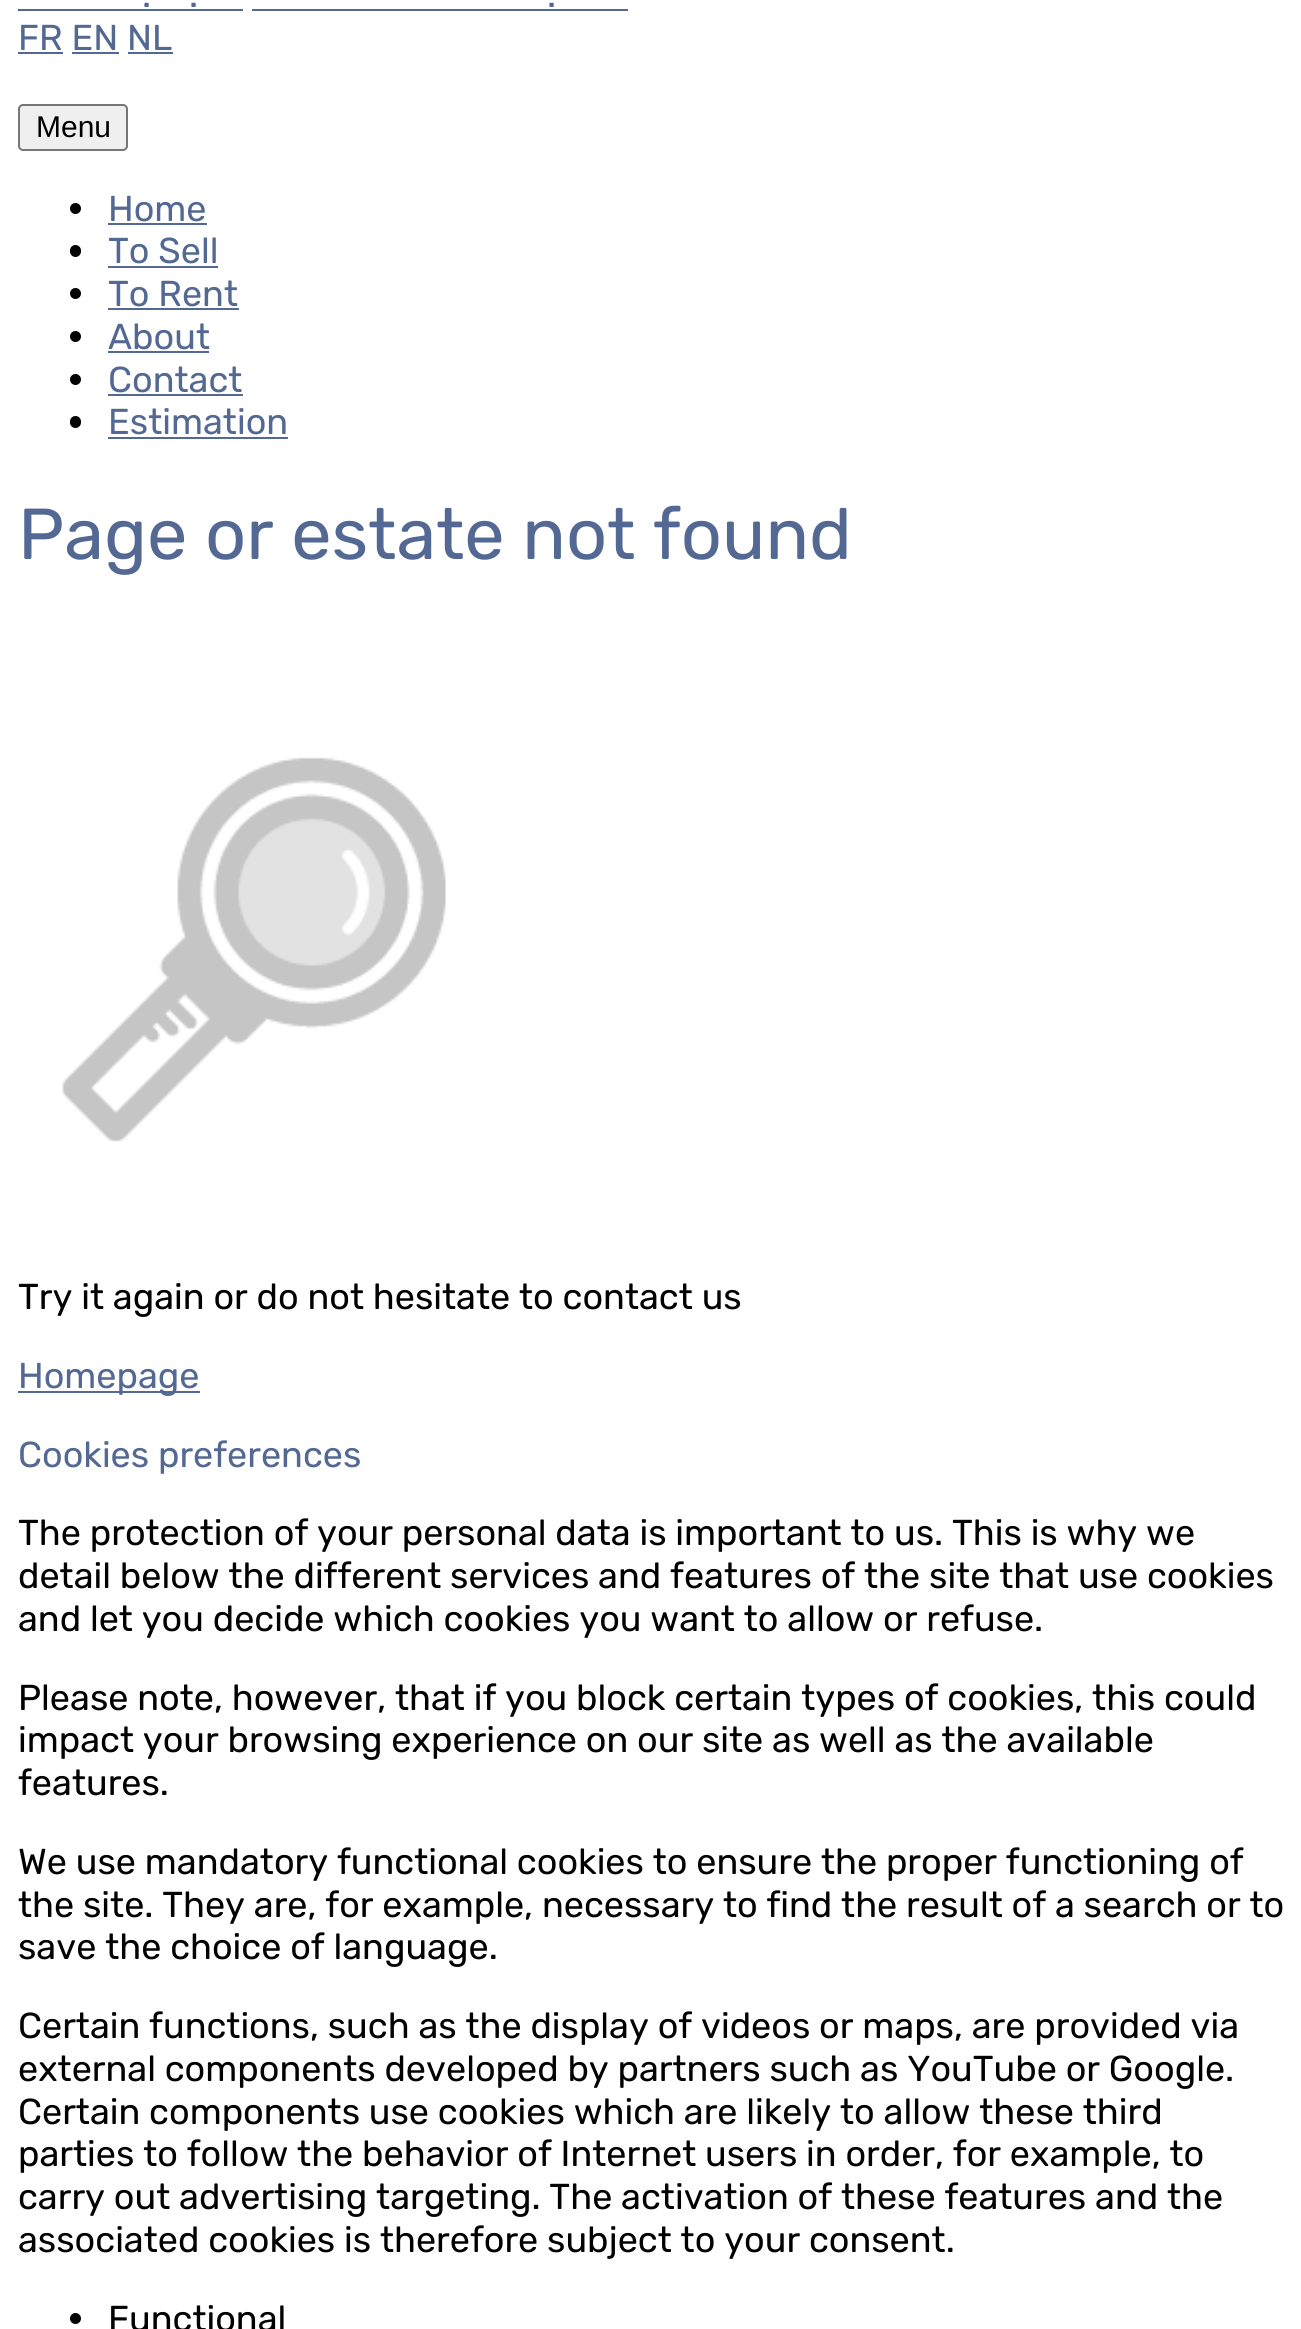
import math
import cairo


def round_path(ctx, x, y, w, h, r):
	ctx.new_sub_path()
	for i, (u, v) in enumerate([(x + w - r, y + h - r), (x + r, y + h - r), (x + r, y + r), (x + w - r, y + r)]):
		ctx.arc(u, v, r, i * math.pi / 2, (i + 1) * math.pi / 2)
	ctx.close_path()

def paste(ctx, path, x, y, w, h):
	ctx.save()
	ctx.set_source_surface(cairo.ImageSurface.create_from_png(path), x, y)
	ctx.rectangle(x, y, w, h)
	ctx.fill()
	ctx.restore()

def draw(ctx):
	ctx.set_source_rgb(1, 1, 1)
	ctx.paint()
	ctx.select_font_face('Rubik')
	ctx.set_font_size(36)
	ctx.set_source_rgb(0.325, 0.408, 0.576)
	ctx.move_to(142, 7)
	ctx.show_text('.')
	ctx.rectangle(18, 9, 225, 2)
	ctx.fill()
	ctx.move_to(189, 7)
	ctx.show_text('.')
	ctx.move_to(547, 7)
	ctx.show_text('.')
	ctx.rectangle(252, 9, 376, 2)
	ctx.fill()
	ctx.move_to(18, 50)
	ctx.show_text('FR EN NL')
	ctx.rectangle(18, 52, 45, 2)
	ctx.rectangle(72, 52, 47, 2)
	ctx.rectangle(128, 52, 45, 2)
	ctx.fill()
	ctx.set_source_rgb(0.937, 0.937, 0.937)
	round_path(ctx, 19, 105, 108, 45, 4)
	ctx.fill_preserve()
	ctx.set_source_rgb(0.463, 0.463, 0.463)
	ctx.stroke()
	ctx.select_font_face('Liberation Sans')
	ctx.set_font_size(30)
	ctx.set_source_rgb(0, 0, 0)
	ctx.move_to(36, 137)
	ctx.show_text('Menu')
	ctx.new_path()
	ctx.arc(75.5, 208.5, 5.5, 0, 2 * math.pi)
	ctx.fill()
	ctx.select_font_face('Rubik')
	ctx.set_font_size(36)
	ctx.set_source_rgb(0.325, 0.408, 0.576)
	ctx.move_to(108, 221)
	ctx.show_text('Home')
	ctx.rectangle(108, 223, 99, 2)
	ctx.fill()
	ctx.set_source_rgb(0, 0, 0)
	round_path(ctx, 70, 245, 11, 12, 5.5)
	ctx.fill()
	ctx.set_source_rgb(0.325, 0.408, 0.576)
	ctx.move_to(108, 263)
	ctx.show_text('To Sell')
	ctx.rectangle(108, 266, 110, 2)
	ctx.fill()
	ctx.set_source_rgb(0, 0, 0)
	ctx.arc(75.5, 293.5, 5.5, 0, 2 * math.pi)
	ctx.fill()
	ctx.set_source_rgb(0.325, 0.408, 0.576)
	ctx.move_to(108, 306)
	ctx.show_text('To Rent')
	ctx.rectangle(108, 308, 131, 2)
	ctx.fill()
	ctx.set_source_rgb(0, 0, 0)
	ctx.arc(75.5, 336.5, 5.5, 0, 2 * math.pi)
	ctx.fill()
	ctx.set_source_rgb(0.325, 0.408, 0.576)
	ctx.move_to(108, 349)
	ctx.show_text('About')
	ctx.rectangle(108, 351, 101, 2)
	ctx.fill()
	ctx.set_source_rgb(0, 0, 0)
	ctx.arc(75.5, 379.5, 5.5, 0, 2 * math.pi)
	ctx.fill()
	ctx.set_source_rgb(0.325, 0.408, 0.576)
	ctx.move_to(108, 392)
	ctx.show_text('Contact')
	ctx.rectangle(108, 394, 135, 2)
	ctx.fill()
	ctx.set_source_rgb(0, 0, 0)
	round_path(ctx, 70, 416, 11, 12, 5.5)
	ctx.fill()
	ctx.set_source_rgb(0.325, 0.408, 0.576)
	ctx.move_to(108, 434)
	ctx.show_text('Estimation')
	ctx.rectangle(108, 437, 180, 2)
	ctx.fill()
	ctx.set_font_size(72)
	ctx.move_to(18, 559)
	ctx.show_text('Page or estate not found')
	paste(ctx, 'media/1.png', 62, 757, 384, 385)
	ctx.set_font_size(36)
	ctx.set_source_rgb(0, 0, 0)
	ctx.move_to(18, 1309)
	ctx.show_text('Try it again or do not hesitate to contact us')
	ctx.set_source_rgb(0.325, 0.408, 0.576)
	ctx.rectangle(18, 1391, 182, 2)
	ctx.fill()
	ctx.move_to(18, 1388)
	ctx.show_text('Homepage')
	ctx.move_to(18, 1467)
	ctx.show_text('Cookies preferences')
	ctx.set_source_rgb(0, 0, 0)
	for x, y, s in [
		(18, 1545, 'The protection of your personal data is important to us. This is why we'),
		(18, 1588, 'detail below the different services and features of the site that use cookies'),
		(18, 1631, 'and let you decide which cookies you want to allow or refuse.'),
		(18, 1710, 'Please note, however, that if you block certain types of cookies, this could'),
		(18, 1752, 'impact your browsing experience on our site as well as the available'),
		(18, 1795, 'features.'),
		(18, 1874, 'We use mandatory functional cookies to ensure the proper functioning of'),
		(18, 1917, 'the site. They are, for example, necessary to find the result of a search or to'),
		(18, 1959, 'save the choice of language.'),
		(18, 2038, 'Certain functions, such as the display of videos or maps, are provided via'),
		(18, 2081, 'external components developed by partners such as YouTube or Google.'),
		(18, 2124, 'Certain components use cookies which are likely to allow these third'),
		(18, 2166, 'parties to follow the behavior of Internet users in order, for example, to'),
		(18, 2209, 'carry out advertising targeting. The activation of these features and the'),
		(18, 2252, 'associated cookies is therefore subject to your consent.'),
	]:
		ctx.move_to(x, y)
		ctx.show_text(s)
	ctx.new_path()
	ctx.arc(75.5, 2318.5, 5.5, 0, 2 * math.pi)
	ctx.fill()
	ctx.move_to(108, 2331)
	ctx.show_text('Functional')


surface = cairo.ImageSurface(cairo.FORMAT_RGB24, 1301, 2329)
ctx = cairo.Context(surface)
options = cairo.FontOptions()
options.set_hint_metrics(cairo.HINT_METRICS_OFF)
options.set_hint_style(cairo.HINT_STYLE_NONE)
ctx.set_font_options(options)
ctx.set_miter_limit(4)
draw(ctx)
surface.write_to_png('image.png')
